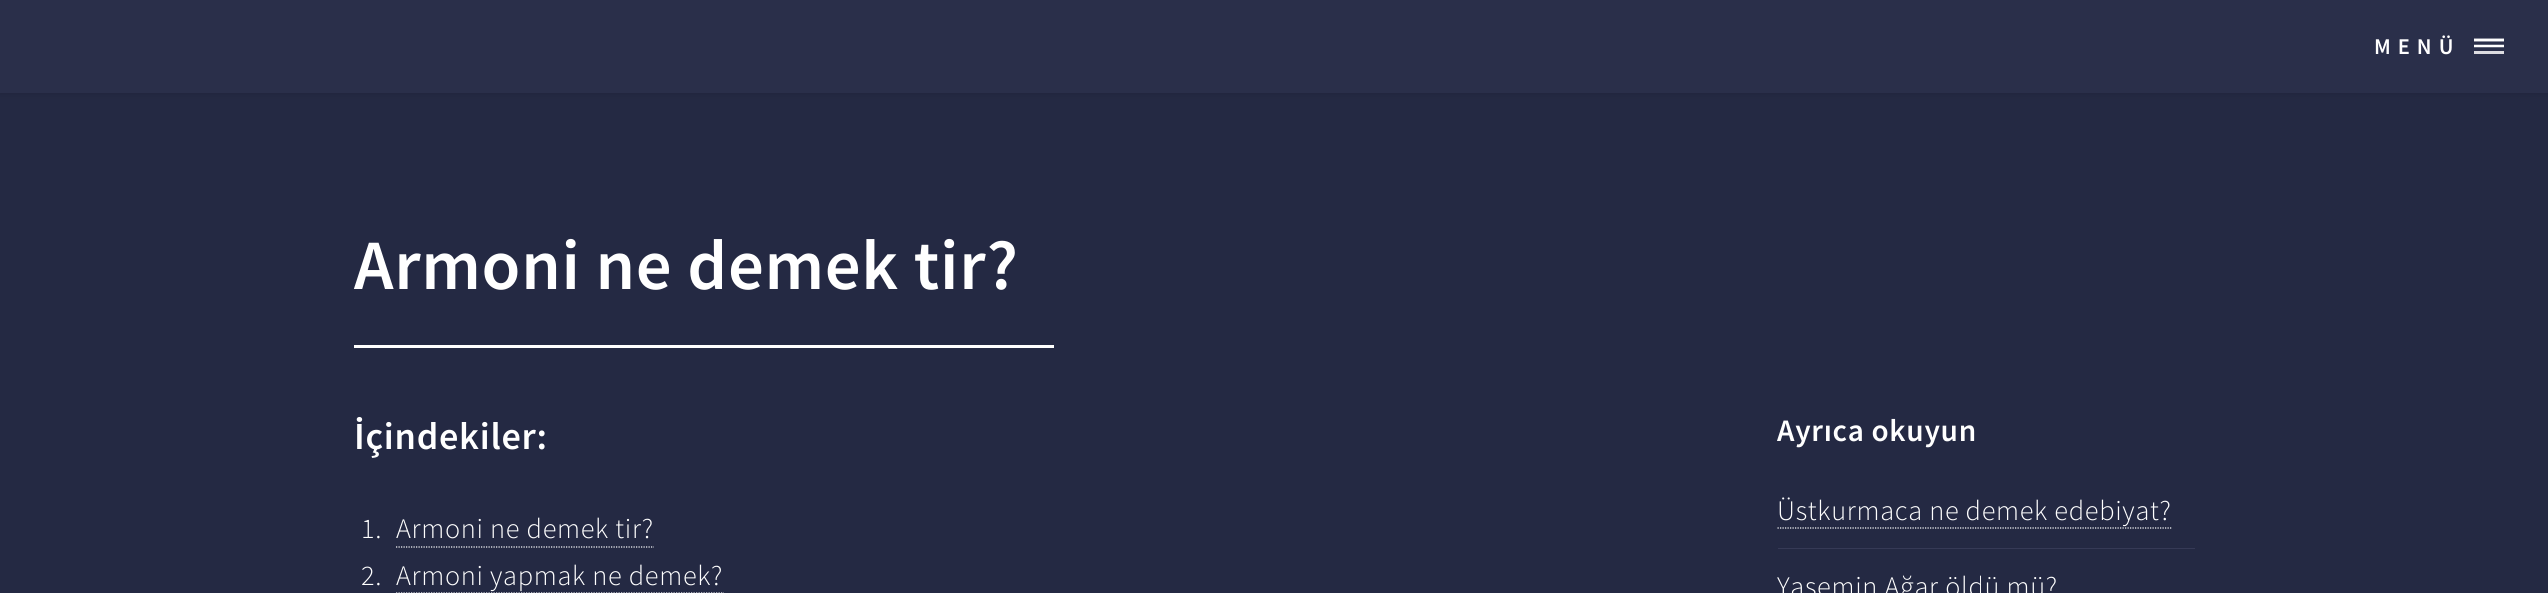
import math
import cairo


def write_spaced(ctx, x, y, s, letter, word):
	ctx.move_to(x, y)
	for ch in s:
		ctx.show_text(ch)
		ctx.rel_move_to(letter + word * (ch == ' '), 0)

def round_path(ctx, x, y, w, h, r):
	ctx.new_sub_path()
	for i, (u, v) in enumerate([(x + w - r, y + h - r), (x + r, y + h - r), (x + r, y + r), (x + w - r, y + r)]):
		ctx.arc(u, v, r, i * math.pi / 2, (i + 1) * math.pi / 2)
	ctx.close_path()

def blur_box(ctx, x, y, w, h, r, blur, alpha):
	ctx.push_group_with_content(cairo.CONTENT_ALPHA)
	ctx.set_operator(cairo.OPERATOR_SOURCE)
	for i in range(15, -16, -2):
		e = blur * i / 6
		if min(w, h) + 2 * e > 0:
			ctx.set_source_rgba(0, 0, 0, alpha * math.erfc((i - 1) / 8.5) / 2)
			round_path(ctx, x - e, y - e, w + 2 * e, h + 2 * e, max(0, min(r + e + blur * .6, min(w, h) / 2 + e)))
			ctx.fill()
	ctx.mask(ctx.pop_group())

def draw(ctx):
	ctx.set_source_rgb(0.141, 0.161, 0.263)
	ctx.paint()
	ctx.set_source_rgb(0, 0, 0)
	blur_box(ctx, 0, 0, 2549, 93, 0, 3.5, 0.15)
	ctx.set_source_rgb(0.165, 0.184, 0.29)
	ctx.rectangle(0, 0, 2548, 93)
	ctx.fill()
	ctx.select_font_face('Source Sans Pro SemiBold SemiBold')
	ctx.set_font_size(22.5)
	ctx.set_source_rgb(1, 1, 1)
	write_spaced(ctx, 2374, 54, 'MENÜ', 7, 0)
	ctx.new_path()
	ctx.move_to(2474, 40)
	ctx.line_to(2504, 40)
	ctx.set_line_width(2.5)
	ctx.stroke()
	ctx.set_source_rgb(0.863, 0.863, 0.882)
	ctx.rectangle(2474, 51, 30, 3)
	ctx.fill()
	ctx.new_path()
	ctx.move_to(2474, 46)
	ctx.line_to(2504, 46)
	ctx.move_to(2474, 40)
	ctx.line_to(2504, 40)
	ctx.move_to(2474, 46)
	ctx.line_to(2504, 46)
	ctx.set_source_rgb(1, 1, 1)
	ctx.stroke()
	ctx.set_font_size(70.75)
	write_spaced(ctx, 354, 289, 'Armoni ne demek tir?', 0.7, 0)
	ctx.rectangle(354, 345, 700, 3)
	ctx.fill()
	ctx.set_font_size(38.25)
	write_spaced(ctx, 354, 449, 'İçindekiler:', 0.7, 0)
	ctx.select_font_face('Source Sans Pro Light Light')
	ctx.set_font_size(28.3)
	write_spaced(ctx, 361, 538, '1.', 0.7, 0)
	write_spaced(ctx, 396, 538, 'Armoni ne demek tir?', 0.7, 0)
	ctx.new_path()
	ctx.move_to(396, 547)
	ctx.line_to(654, 547)
	ctx.set_line_width(1.2)
	ctx.set_dash([1.25, 1.25])
	ctx.stroke()
	write_spaced(ctx, 361, 585, '2.', 0.7, 0)
	write_spaced(ctx, 396, 585, 'Armoni yapmak ne demek?', 0.7, 0)
	ctx.new_path()
	ctx.move_to(396, 593)
	ctx.line_to(724, 593)
	ctx.stroke()
	ctx.select_font_face('Source Sans Pro SemiBold SemiBold')
	ctx.set_font_size(31.25)
	write_spaced(ctx, 1777, 441, 'Ayrıca okuyun', 0.7, 0)
	ctx.select_font_face('Source Sans Pro Light Light')
	ctx.set_font_size(28.3)
	write_spaced(ctx, 1777, 520, 'Üstkurmaca ne demek edebiyat?', 0.7, 0)
	ctx.new_path()
	ctx.move_to(1777.5, 528)
	ctx.line_to(2172.5, 528)
	ctx.stroke()
	ctx.set_source_rgb(0.212, 0.227, 0.337)
	ctx.rectangle(1778, 548, 417, 1)
	ctx.fill()
	ctx.set_source_rgb(1, 1, 1)
	write_spaced(ctx, 1777, 596, 'Yasemin Ağar öldü mü?', 0.7, 0)


surface = cairo.ImageSurface(cairo.FORMAT_RGB24, 2548, 593)
ctx = cairo.Context(surface)
options = cairo.FontOptions()
options.set_hint_metrics(cairo.HINT_METRICS_OFF)
options.set_hint_style(cairo.HINT_STYLE_NONE)
ctx.set_font_options(options)
ctx.set_miter_limit(4)
draw(ctx)
surface.write_to_png('image.png')
